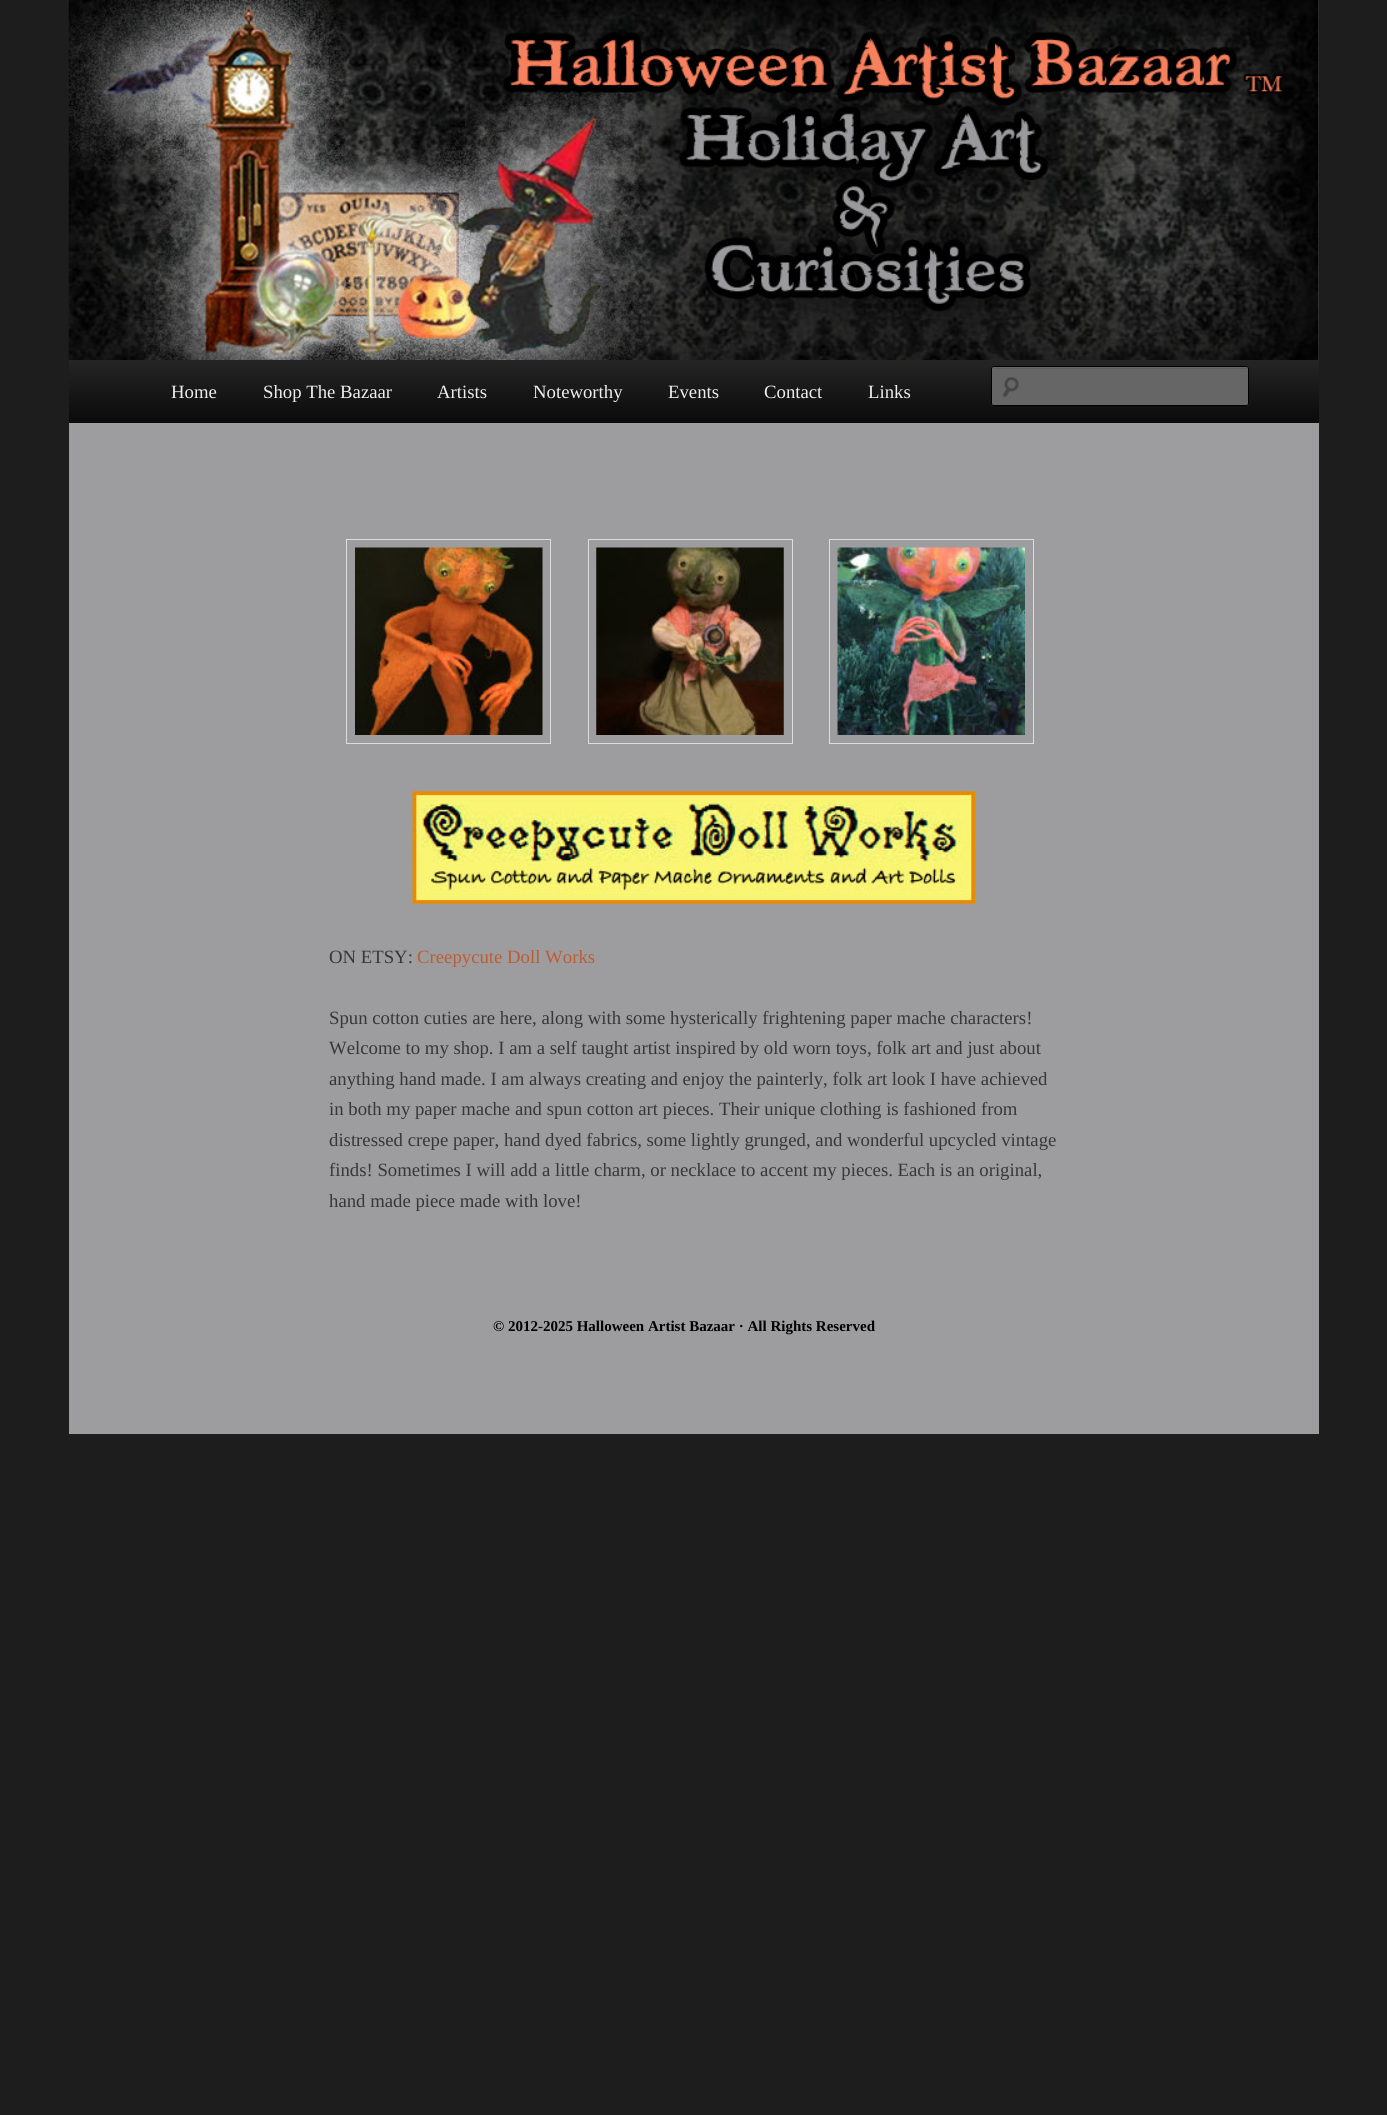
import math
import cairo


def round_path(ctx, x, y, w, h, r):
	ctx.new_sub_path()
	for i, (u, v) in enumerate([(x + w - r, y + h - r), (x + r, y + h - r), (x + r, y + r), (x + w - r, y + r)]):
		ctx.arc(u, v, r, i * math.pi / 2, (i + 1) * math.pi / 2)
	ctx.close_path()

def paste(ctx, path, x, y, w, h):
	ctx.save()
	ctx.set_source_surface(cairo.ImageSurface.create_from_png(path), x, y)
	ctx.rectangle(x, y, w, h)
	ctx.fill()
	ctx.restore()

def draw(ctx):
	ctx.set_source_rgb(0.114, 0.114, 0.114)
	ctx.paint()
	ctx.set_source_rgb(0.616, 0.616, 0.624)
	ctx.rectangle(69, 0, 1250, 1434)
	ctx.fill()
	paste(ctx, 'media/1.png', 68, 0, 1251, 360)
	gradient = cairo.LinearGradient(694, 360, 694, 423)
	gradient.add_color_stop_rgba(0, 0.145, 0.145, 0.145, 1)
	gradient.add_color_stop_rgba(1, 0.039, 0.039, 0.039, 1)
	ctx.set_source(gradient)
	ctx.rectangle(69, 360, 1250, 63)
	ctx.fill()
	ctx.select_font_face('Liberation Serif')
	ctx.set_font_size(18.75)
	ctx.set_source_rgb(0.933, 0.933, 0.933)
	for x, y, s in [
		(171, 398, 'Home'),
		(263, 398, 'Shop The Bazaar'),
		(437, 398, 'Artists'),
		(533, 398, 'Noteworthy'),
		(668, 398, 'Events'),
		(764, 398, 'Contact'),
		(868, 398, 'Links'),
	]:
		ctx.move_to(x, y)
		ctx.show_text(s)
	ctx.set_source_rgb(0.4, 0.4, 0.4)
	round_path(ctx, 991, 366, 258, 40, 2.5)
	ctx.fill()
	paste(ctx, 'media/2.png', 1002, 377, 17, 21)
	ctx.set_source_rgb(0.361, 0.361, 0.361)
	ctx.new_path()
	ctx.move_to(994, 369)
	ctx.line_to(1246, 369)
	ctx.curve_to(1247, 369, 1248, 369, 1248, 370)
	ctx.line_to(1248, 368)
	ctx.line_to(994, 368)
	ctx.line_to(993, 369)
	ctx.close_path()
	ctx.fill()
	round_path(ctx, 991.5, 366.5, 257, 39, 2)
	ctx.set_source_rgb(0, 0, 0)
	ctx.set_line_width(1)
	ctx.stroke()
	ctx.rectangle(346.5, 539.5, 204, 204)
	ctx.set_source_rgb(0.867, 0.867, 0.867)
	ctx.stroke()
	paste(ctx, 'media/3.png', 355, 547, 188, 188)
	ctx.rectangle(588.5, 539.5, 204, 204)
	ctx.stroke()
	paste(ctx, 'media/4.png', 596, 547, 188, 188)
	ctx.rectangle(829.5, 539.5, 204, 204)
	ctx.stroke()
	paste(ctx, 'media/5.png', 837, 547, 188, 188)
	paste(ctx, 'media/6.png', 412, 791, 563, 113)
	ctx.set_source_rgb(0.216, 0.216, 0.216)
	ctx.move_to(329, 963)
	ctx.show_text('ON ETSY:')
	ctx.set_source_rgb(0.741, 0.361, 0.2)
	ctx.move_to(417, 963)
	ctx.show_text('Creepycute Doll Works')
	ctx.set_source_rgb(0.216, 0.216, 0.216)
	for x, y, s in [
		(329, 1024, 'Spun cotton cuties are here, along with some hysterically frightening paper mache characters!'),
		(329, 1054, 'Welcome to my shop. I am a self taught artist inspired by old worn toys, folk art and just about'),
		(329, 1085, 'anything hand made. I am always creating and enjoy the painterly, folk art look I have achieved'),
		(329, 1115, 'in both my paper mache and spun cotton art pieces. Their unique clothing is fashioned from'),
		(329, 1146, 'distressed crepe paper, hand dyed fabrics, some lightly grunged, and wonderful upcycled vintage'),
		(329, 1176, 'finds! Sometimes I will add a little charm, or necklace to accent my pieces. Each is an original,'),
		(329, 1207, 'hand made piece made with love!'),
	]:
		ctx.move_to(x, y)
		ctx.show_text(s)
	ctx.select_font_face('Liberation Serif', cairo.FONT_SLANT_NORMAL, cairo.FONT_WEIGHT_BOLD)
	ctx.set_font_size(15)
	ctx.set_source_rgb(0, 0, 0)
	ctx.move_to(493, 1331)
	ctx.show_text('© 2012-2025 Halloween Artist Bazaar · All Rights Reserved')


surface = cairo.ImageSurface(cairo.FORMAT_RGB24, 1387, 2115)
ctx = cairo.Context(surface)
options = cairo.FontOptions()
options.set_hint_metrics(cairo.HINT_METRICS_OFF)
options.set_hint_style(cairo.HINT_STYLE_NONE)
ctx.set_font_options(options)
ctx.set_miter_limit(4)
draw(ctx)
surface.write_to_png('image.png')
